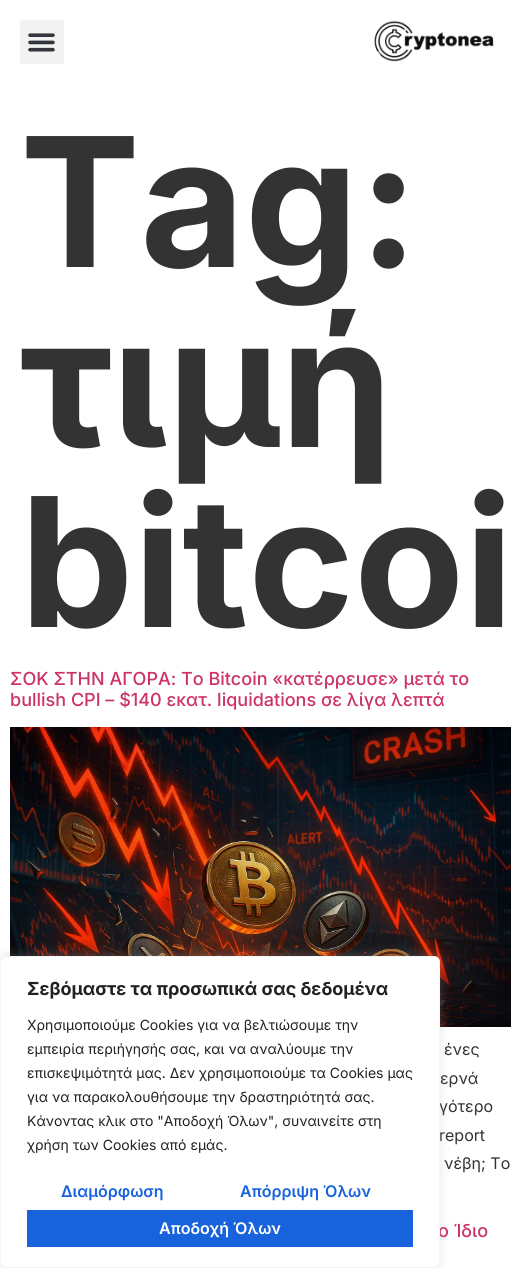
import math
import cairo


def round_path(ctx, x, y, w, h, r):
	ctx.new_sub_path()
	for i, (u, v) in enumerate([(x + w - r, y + h - r), (x + r, y + h - r), (x + r, y + r), (x + w - r, y + r)]):
		ctx.arc(u, v, r, i * math.pi / 2, (i + 1) * math.pi / 2)
	ctx.close_path()

def blur_box(ctx, x, y, w, h, r, blur, alpha):
	ctx.push_group_with_content(cairo.CONTENT_ALPHA)
	ctx.set_operator(cairo.OPERATOR_SOURCE)
	for i in range(15, -16, -2):
		e = blur * i / 6
		if min(w, h) + 2 * e > 0:
			ctx.set_source_rgba(0, 0, 0, alpha * math.erfc((i - 1) / 8.5) / 2)
			round_path(ctx, x - e, y - e, w + 2 * e, h + 2 * e, max(0, min(r + e + blur * .6, min(w, h) / 2 + e)))
			ctx.fill()
	ctx.mask(ctx.pop_group())

def paste(ctx, path, x, y, w, h):
	ctx.save()
	ctx.set_source_surface(cairo.ImageSurface.create_from_png(path), x, y)
	ctx.rectangle(x, y, w, h)
	ctx.fill()
	ctx.restore()

def draw(ctx):
	ctx.set_source_rgb(1, 1, 1)
	ctx.paint()
	ctx.set_source_rgb(0.949, 0.949, 0.949)
	round_path(ctx, 20, 20, 44, 44, 3)
	ctx.fill()
	paste(ctx, 'media/1.png', 28, 33, 27, 19)
	paste(ctx, 'media/2.png', 374, 20, 120, 42)
	ctx.select_font_face('Inter', cairo.FONT_SLANT_NORMAL, cairo.FONT_WEIGHT_BOLD)
	ctx.set_font_size(180)
	ctx.set_source_rgb(0.2, 0.2, 0.2)
	for x, y, s in [
		(20, 267, 'Tag:'),
		(20, 447, 'τιμή'),
		(20, 627, 'bitcoi'),
	]:
		ctx.move_to(x, y)
		ctx.show_text(s)
	ctx.select_font_face('Inter Medium')
	ctx.set_font_size(18)
	ctx.set_source_rgb(0.8, 0.2, 0.4)
	ctx.move_to(10, 685)
	ctx.show_text('ΣΟΚ ΣΤΗΝ ΑΓΟΡΑ: Το Bitcoin «κατέρρευσε» μετά το')
	ctx.move_to(10, 706)
	ctx.show_text('bullish CPI – $140 εκατ. liquidations σε λίγα λεπτά')
	paste(ctx, 'media/3.png', 10, 727, 501, 300)
	ctx.select_font_face('Inter')
	ctx.set_font_size(16)
	ctx.set_source_rgb(0.2, 0.2, 0.2)
	for x, y, s in [
		(444, 1055, 'ένες'),
		(440, 1084, 'ερνά'),
		(439, 1112, 'γότερο'),
		(439, 1141, 'report'),
		(444, 1169, 'νέβη; Το'),
	]:
		ctx.move_to(x, y)
		ctx.show_text(s)
	ctx.select_font_face('Inter Medium')
	ctx.set_font_size(18)
	ctx.set_source_rgb(0.8, 0.2, 0.4)
	ctx.move_to(438, 1237)
	ctx.show_text('ο Ίδιο')
	ctx.set_source_rgb(0.675, 0.671, 0.671)
	blur_box(ctx, 0, 955, 440, 312, 6, 5, 0.3)
	ctx.set_source_rgb(1, 1, 1)
	round_path(ctx, 0.5, 956.5, 439, 311, 5.5)
	ctx.fill_preserve()
	ctx.set_source_rgb(0.957, 0.957, 0.957)
	ctx.set_line_width(1)
	ctx.stroke()
	ctx.select_font_face('Inter', cairo.FONT_SLANT_NORMAL, cairo.FONT_WEIGHT_BOLD)
	ctx.set_source_rgb(0.129, 0.129, 0.129)
	ctx.move_to(27, 995)
	ctx.show_text('Σεβόμαστε τα προσωπικά σας δεδομένα')
	ctx.select_font_face('Inter')
	ctx.set_font_size(14)
	for x, y, s in [
		(27, 1030, 'Χρησιμοποιούμε Cookies για να βελτιώσουμε την'),
		(27, 1054, 'εμπειρία περιήγησής σας, και να αναλύουμε την'),
		(27, 1078, 'επισκεψιμότητά μας. Δεν χρησιμοποιούμε τα Cookies μας'),
		(27, 1102, 'για να παρακολουθήσουμε την δραστηριότητά σας.'),
		(27, 1126, 'Κάνοντας κλικ στο "Αποδοχή Όλων", συναινείτε στη'),
		(27, 1150, 'χρήση των Cookies από εμάς.'),
	]:
		ctx.move_to(x, y)
		ctx.show_text(s)
	ctx.select_font_face('Inter SemiBold')
	ctx.set_font_size(16)
	ctx.set_source_rgb(0.094, 0.388, 0.863)
	ctx.move_to(61, 1197)
	ctx.show_text('Διαμόρφωση')
	ctx.move_to(240, 1197)
	ctx.show_text('Απόρριψη Όλων')
	ctx.rectangle(27, 1210, 386, 37)
	ctx.fill()
	ctx.set_source_rgb(1, 1, 1)
	ctx.move_to(159, 1234)
	ctx.show_text('Αποδοχή Όλων')


surface = cairo.ImageSurface(cairo.FORMAT_RGB24, 521, 1268)
ctx = cairo.Context(surface)
options = cairo.FontOptions()
options.set_hint_metrics(cairo.HINT_METRICS_OFF)
options.set_hint_style(cairo.HINT_STYLE_NONE)
ctx.set_font_options(options)
ctx.set_miter_limit(4)
draw(ctx)
surface.write_to_png('image.png')
